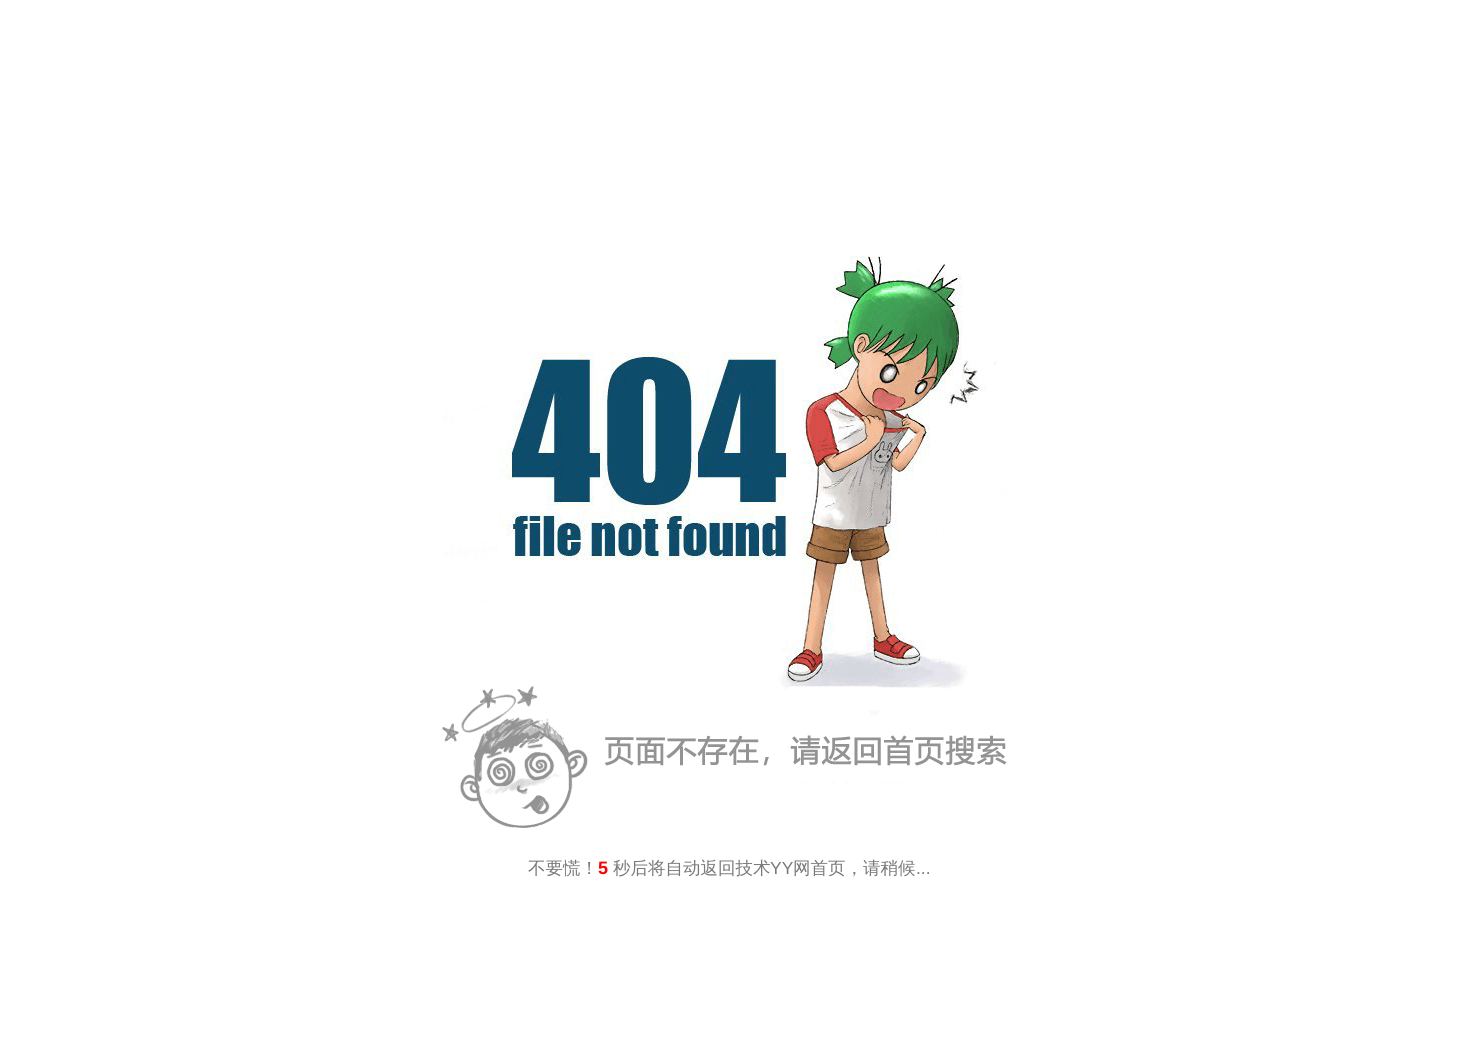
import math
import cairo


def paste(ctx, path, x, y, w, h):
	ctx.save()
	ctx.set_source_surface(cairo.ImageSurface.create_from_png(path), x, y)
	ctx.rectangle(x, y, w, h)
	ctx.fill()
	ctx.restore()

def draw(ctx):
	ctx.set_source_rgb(1, 1, 1)
	ctx.paint()
	paste(ctx, 'media/1.png', 442, 256, 565, 572)
	ctx.select_font_face('WenQuanYi Zen Hei Medium')
	ctx.set_font_size(17.5)
	ctx.set_source_rgb(0.475, 0.475, 0.475)
	ctx.move_to(528, 874)
	ctx.show_text('不要慌！')
	ctx.select_font_face('Liberation Sans', cairo.FONT_SLANT_NORMAL, cairo.FONT_WEIGHT_BOLD)
	ctx.set_font_size(18)
	ctx.set_source_rgb(1, 0, 0)
	ctx.move_to(598, 874)
	ctx.show_text('5')
	ctx.select_font_face('WenQuanYi Zen Hei Medium')
	ctx.set_font_size(17.5)
	ctx.set_source_rgb(0.475, 0.475, 0.475)
	ctx.move_to(613, 874)
	ctx.show_text('秒后将自动返回技术')
	ctx.select_font_face('Liberation Sans')
	ctx.move_to(770, 874)
	ctx.show_text('YY')
	ctx.select_font_face('WenQuanYi Zen Hei Medium')
	ctx.move_to(793, 874)
	ctx.show_text('网首页，请稍候')
	ctx.select_font_face('Liberation Sans')
	ctx.move_to(916, 874)
	ctx.show_text('...')


surface = cairo.ImageSurface(cairo.FORMAT_RGB24, 1458, 1062)
ctx = cairo.Context(surface)
options = cairo.FontOptions()
options.set_hint_metrics(cairo.HINT_METRICS_OFF)
options.set_hint_style(cairo.HINT_STYLE_NONE)
ctx.set_font_options(options)
ctx.set_miter_limit(4)
draw(ctx)
surface.write_to_png('image.png')
